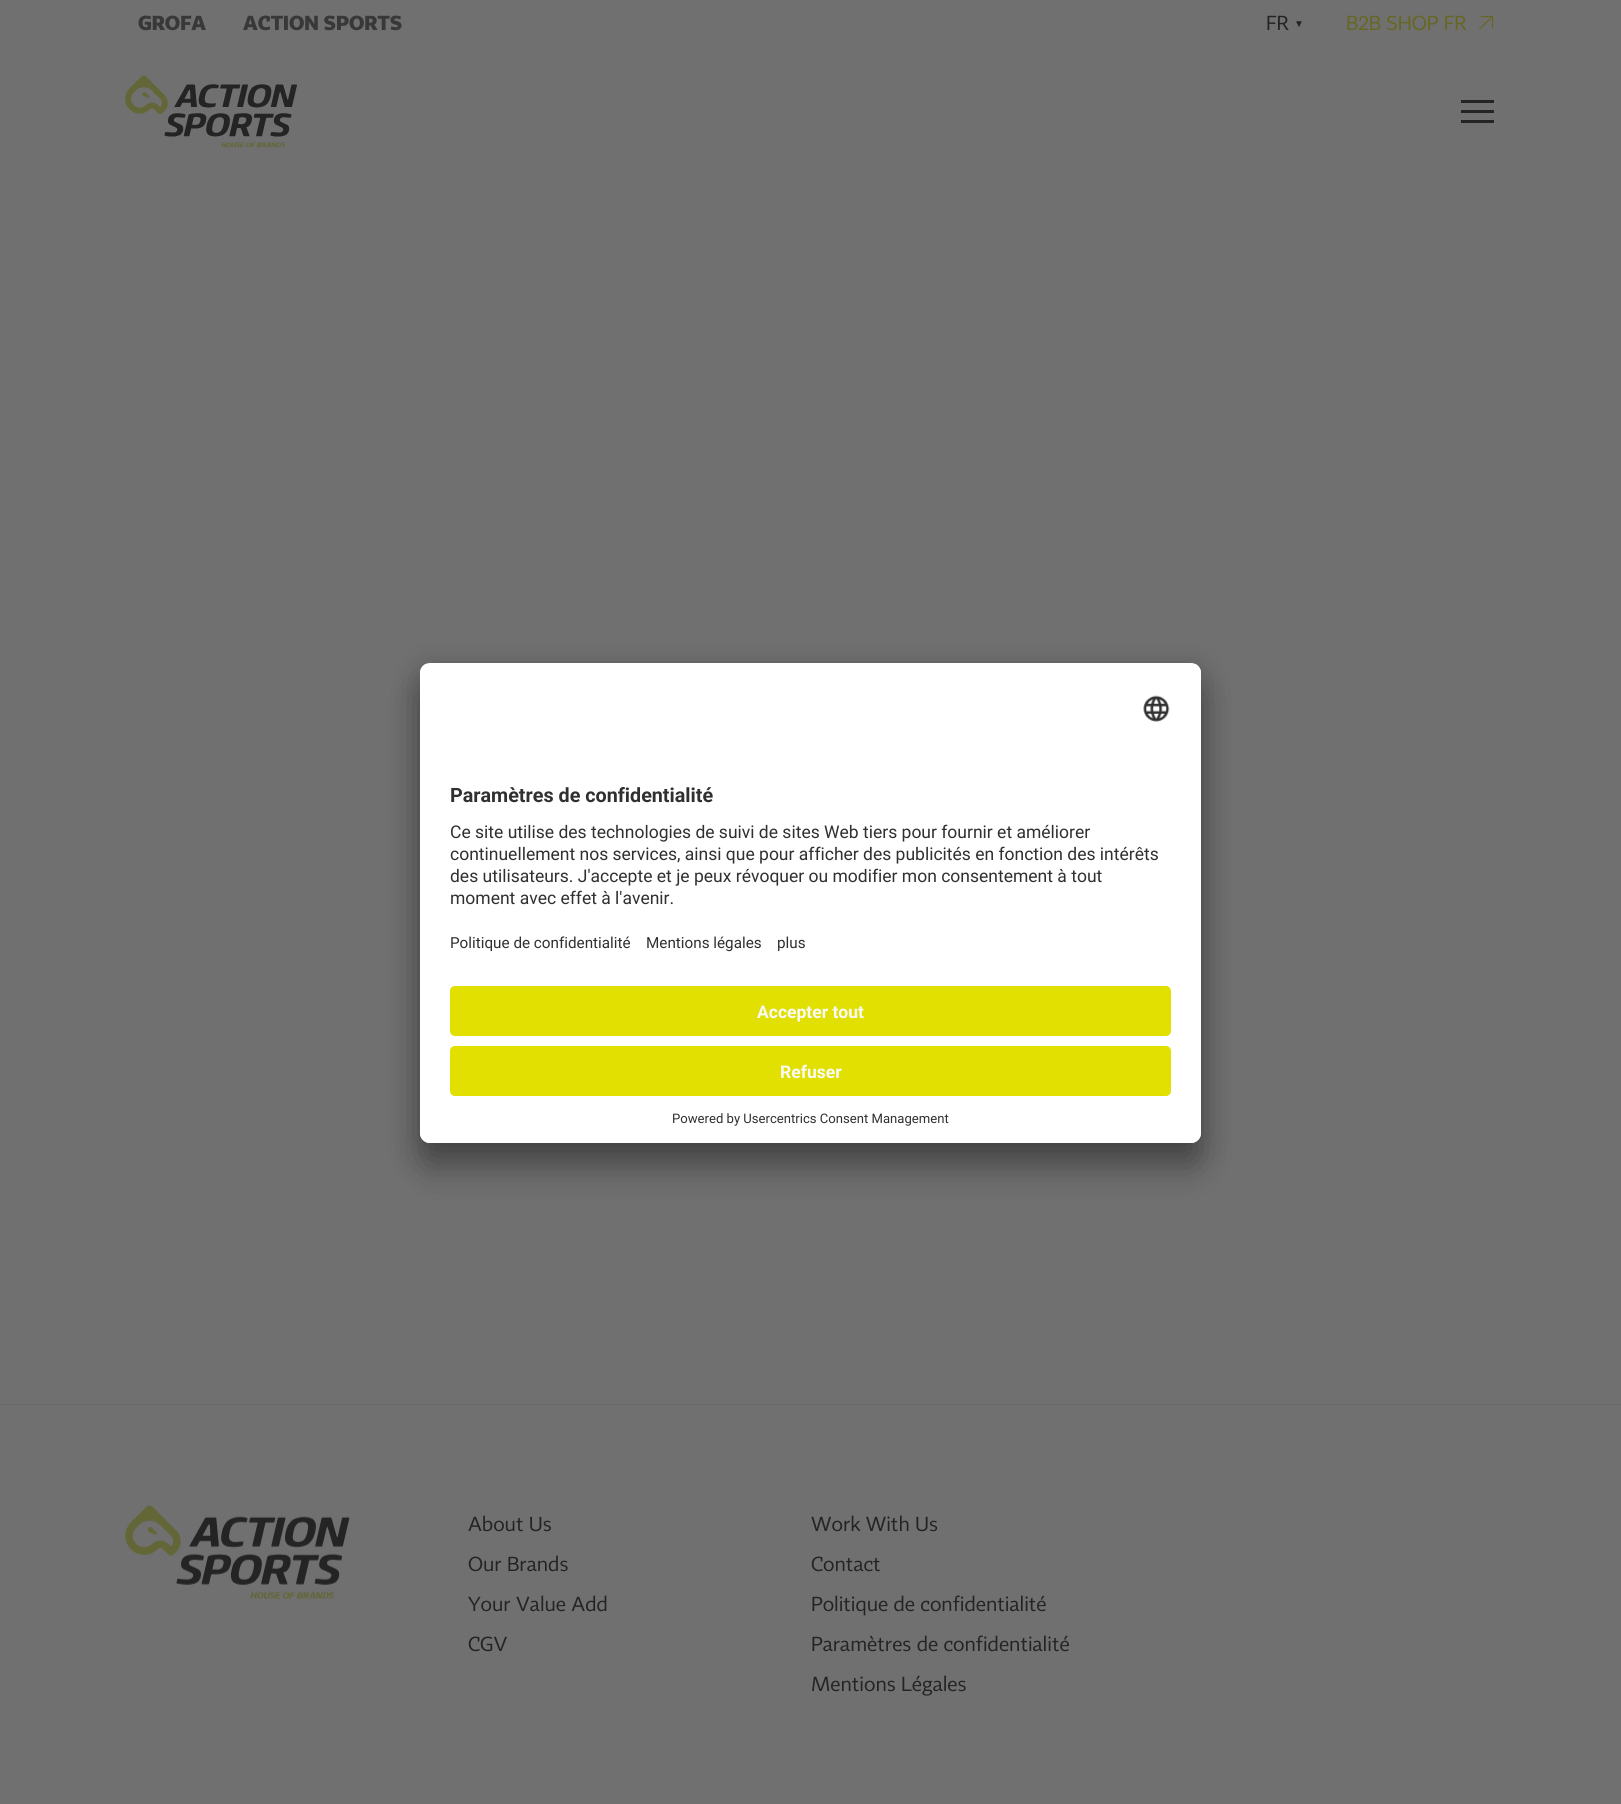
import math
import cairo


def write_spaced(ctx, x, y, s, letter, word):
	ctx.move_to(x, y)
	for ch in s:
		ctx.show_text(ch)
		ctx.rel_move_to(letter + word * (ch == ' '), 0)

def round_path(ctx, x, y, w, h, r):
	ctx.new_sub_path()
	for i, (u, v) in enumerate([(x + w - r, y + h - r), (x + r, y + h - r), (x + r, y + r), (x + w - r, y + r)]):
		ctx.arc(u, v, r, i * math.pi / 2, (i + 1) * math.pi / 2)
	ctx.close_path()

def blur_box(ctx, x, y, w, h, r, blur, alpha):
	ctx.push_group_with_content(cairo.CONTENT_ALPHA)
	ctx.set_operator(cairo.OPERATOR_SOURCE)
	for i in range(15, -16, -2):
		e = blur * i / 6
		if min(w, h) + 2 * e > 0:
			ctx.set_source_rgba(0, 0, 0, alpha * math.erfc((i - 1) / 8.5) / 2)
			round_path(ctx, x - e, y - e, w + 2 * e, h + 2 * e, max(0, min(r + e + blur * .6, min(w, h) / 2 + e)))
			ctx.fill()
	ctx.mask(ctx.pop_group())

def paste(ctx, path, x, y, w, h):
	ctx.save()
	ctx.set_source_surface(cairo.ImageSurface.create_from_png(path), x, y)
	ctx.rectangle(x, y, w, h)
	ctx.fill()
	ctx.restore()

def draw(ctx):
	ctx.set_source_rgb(0.439, 0.439, 0.439)
	ctx.paint()
	ctx.select_font_face('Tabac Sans', cairo.FONT_SLANT_NORMAL, cairo.FONT_WEIGHT_BOLD)
	ctx.set_font_size(20)
	ctx.set_source_rgb(0.22, 0.22, 0.22)
	ctx.move_to(138, 30)
	ctx.show_text('GROFA')
	ctx.move_to(243, 30)
	ctx.show_text('ACTION SPORTS')
	ctx.select_font_face('Tabac Sans')
	ctx.set_source_rgb(0.141, 0.141, 0.141)
	ctx.move_to(1266, 30)
	ctx.show_text('FR')
	ctx.select_font_face('Liberation Sans')
	ctx.set_font_size(10)
	write_spaced(ctx, 1294, 27, '▼', 10, 0)
	ctx.select_font_face('Tabac Sans')
	ctx.set_font_size(20)
	ctx.set_source_rgb(0.404, 0.404, 0.141)
	ctx.move_to(1346, 30)
	ctx.show_text('B2B SHOP FR')
	ctx.new_path()
	ctx.move_to(1479.5, 29)
	ctx.line_to(1492.5, 16.5)
	ctx.move_to(1492.5, 16.5)
	ctx.line_to(1481, 16.5)
	ctx.move_to(1492.5, 16.5)
	ctx.line_to(1492.5, 28)
	ctx.set_line_width(1.2)
	ctx.set_line_cap(cairo.LINE_CAP_ROUND)
	ctx.stroke()
	paste(ctx, 'media/1.png', 125, 75, 172, 73)
	ctx.set_source_rgb(0.141, 0.141, 0.141)
	ctx.rectangle(1461, 100, 33, 3)
	ctx.rectangle(1461, 110, 33, 3)
	ctx.rectangle(1461, 120, 33, 3)
	ctx.fill()
	ctx.set_source_rgb(0.412, 0.412, 0.412)
	ctx.rectangle(0, 1404, 1621, 1)
	ctx.fill()
	paste(ctx, 'media/2.png', 125, 1504, 225, 95)
	ctx.set_source_rgb(0.141, 0.141, 0.141)
	for x, y, s in [
		(468, 1531, 'About Us'),
		(468, 1571, 'Our Brands'),
		(468, 1611, 'Your Value Add'),
		(468, 1651, 'CGV'),
		(811, 1531, 'Work With Us'),
		(811, 1571, 'Contact'),
		(811, 1611, 'Politique de confidentialité'),
		(811, 1651, 'Paramètres de confidentialité'),
		(811, 1691, 'Mentions Légales'),
	]:
		ctx.move_to(x, y)
		ctx.show_text(s)
	ctx.set_source_rgb(0, 0, 0)
	blur_box(ctx, 420, 688, 781, 480, 10, 17.5, 0.3)
	blur_box(ctx, 420, 669, 781, 480, 10, 16, 0.22)
	ctx.set_source_rgb(1, 1, 1)
	round_path(ctx, 420, 663, 781, 480, 10)
	ctx.fill()
	ctx.save()
	round_path(ctx, 420, 663, 781, 480, 10)
	ctx.clip()
	ctx.new_path()
	ctx.move_to(430, 663)
	ctx.line_to(1191, 663)
	ctx.curve_to(1196.5, 663, 1201, 667.5, 1201, 673)
	ctx.line_to(1201, 971)
	ctx.line_to(420, 971)
	ctx.line_to(420, 673)
	ctx.curve_to(420, 667.5, 424.5, 663, 430, 663)
	ctx.close_path()
	ctx.clip()
	ctx.rectangle(420, 664, 781, 307)
	ctx.fill()
	ctx.restore()
	paste(ctx, 'media/3.png', 1143, 695, 27, 27)
	ctx.select_font_face('Roboto', cairo.FONT_SLANT_NORMAL, cairo.FONT_WEIGHT_BOLD)
	ctx.set_font_size(19.75)
	ctx.set_source_rgb(0.188, 0.188, 0.188)
	ctx.move_to(450, 802)
	ctx.show_text('Paramètres de confidentialité')
	ctx.select_font_face('Roboto')
	ctx.set_font_size(17.5)
	for x, y, s in [
		(450, 838, 'Ce site utilise des technologies de suivi de sites Web tiers pour fournir et améliorer'),
		(450, 860, 'continuellement nos services, ainsi que pour afficher des publicités en fonction des intérêts'),
		(450, 882, 'des utilisateurs. J\'accepte et je peux révoquer ou modifier mon consentement à tout'),
		(450, 904, 'moment avec effet à l\'avenir.'),
	]:
		ctx.move_to(x, y)
		ctx.show_text(s)
	ctx.set_font_size(15.25)
	for x, y, s in [
		(450, 948, 'Politique de confidentialité'),
		(646, 948, 'Mentions légales'),
		(777, 948, 'plus'),
	]:
		ctx.move_to(x, y)
		ctx.show_text(s)
	ctx.set_source_rgb(1, 1, 1)
	ctx.new_path()
	ctx.move_to(420, 971)
	ctx.line_to(1201, 971)
	ctx.line_to(1201, 1133)
	ctx.curve_to(1201, 1138.5, 1196.5, 1143, 1191, 1143)
	ctx.line_to(430, 1143)
	ctx.curve_to(424.5, 1143, 420, 1138.5, 420, 1133)
	ctx.close_path()
	ctx.fill()
	ctx.set_source_rgb(0.882, 0.878, 0)
	round_path(ctx, 450, 986, 721, 50, 5)
	ctx.fill()
	ctx.select_font_face('Roboto', cairo.FONT_SLANT_NORMAL, cairo.FONT_WEIGHT_BOLD)
	ctx.set_font_size(17.5)
	ctx.set_source_rgb(0.98, 0.98, 0.98)
	ctx.move_to(757, 1018)
	ctx.show_text('Accepter tout')
	ctx.set_source_rgb(0.882, 0.878, 0)
	round_path(ctx, 450, 1046, 721, 50, 5)
	ctx.fill()
	ctx.set_source_rgb(0.98, 0.98, 0.98)
	ctx.move_to(780, 1078)
	ctx.show_text('Refuser')
	ctx.select_font_face('Roboto')
	ctx.set_font_size(13.1)
	ctx.set_source_rgb(0.188, 0.188, 0.188)
	ctx.move_to(672, 1123)
	ctx.show_text('Powered by Usercentrics Consent Management')


surface = cairo.ImageSurface(cairo.FORMAT_RGB24, 1621, 1804)
ctx = cairo.Context(surface)
options = cairo.FontOptions()
options.set_hint_metrics(cairo.HINT_METRICS_OFF)
options.set_hint_style(cairo.HINT_STYLE_NONE)
ctx.set_font_options(options)
ctx.set_miter_limit(4)
draw(ctx)
surface.write_to_png('image.png')
